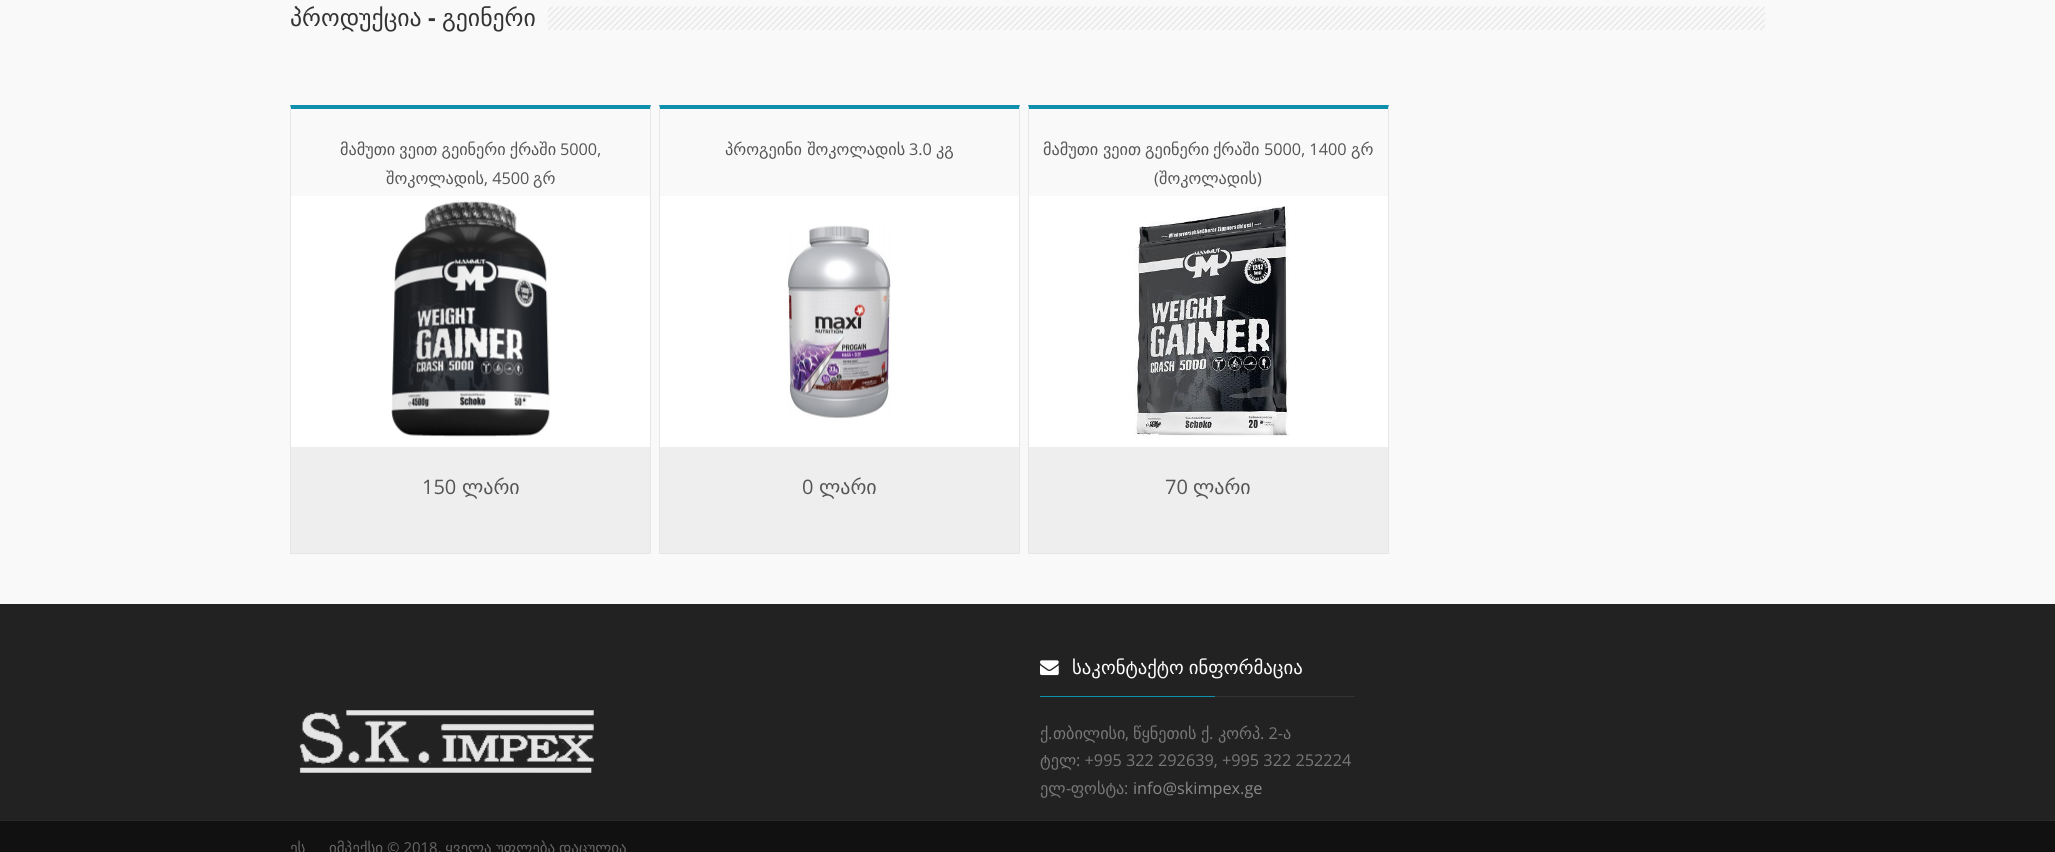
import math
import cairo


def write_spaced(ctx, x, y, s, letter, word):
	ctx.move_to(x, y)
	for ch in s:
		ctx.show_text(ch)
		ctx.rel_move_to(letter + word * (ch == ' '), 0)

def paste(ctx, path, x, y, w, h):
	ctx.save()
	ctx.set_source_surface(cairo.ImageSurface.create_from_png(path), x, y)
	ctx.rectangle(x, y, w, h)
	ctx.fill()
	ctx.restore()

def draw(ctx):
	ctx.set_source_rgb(0.976, 0.976, 0.976)
	ctx.paint()
	paste(ctx, 'media/1.png', 548, 6, 1217, 24)
	ctx.select_font_face('DejaVu Sans')
	ctx.set_font_size(23.75)
	ctx.set_source_rgb(0.2, 0.2, 0.2)
	ctx.move_to(290, 26)
	ctx.show_text('პროდუქცია')
	ctx.select_font_face('Open Sans', cairo.FONT_SLANT_NORMAL, cairo.FONT_WEIGHT_BOLD)
	ctx.move_to(428, 26)
	ctx.show_text('-')
	ctx.select_font_face('DejaVu Sans')
	ctx.move_to(442, 26)
	ctx.show_text('გეინერი')
	ctx.set_source_rgb(0.055, 0.561, 0.671)
	ctx.new_path()
	ctx.move_to(290, 105)
	ctx.line_to(651, 105)
	ctx.line_to(650, 109)
	ctx.line_to(291, 109)
	ctx.close_path()
	ctx.fill()
	ctx.set_source_rgb(0.902, 0.902, 0.902)
	ctx.new_path()
	ctx.move_to(651, 105)
	ctx.line_to(651, 554)
	ctx.line_to(650, 552)
	ctx.line_to(650, 109)
	ctx.close_path()
	ctx.fill()
	ctx.rectangle(290, 553, 361, 1)
	ctx.fill()
	ctx.new_path()
	ctx.move_to(290, 554)
	ctx.line_to(290, 105)
	ctx.line_to(291, 109)
	ctx.line_to(291, 552)
	ctx.close_path()
	ctx.fill()
	ctx.set_font_size(16.25)
	ctx.set_source_rgb(0.333, 0.333, 0.333)
	write_spaced(ctx, 340, 155, 'მამუთი ვეით გეინერი ქრაში', 0, -1)
	ctx.select_font_face('Open Sans')
	ctx.move_to(560, 155)
	ctx.show_text('5000,')
	ctx.select_font_face('DejaVu Sans')
	ctx.move_to(386, 184)
	ctx.show_text('შოკოლადის')
	ctx.select_font_face('Open Sans')
	ctx.move_to(484, 184)
	ctx.show_text(', 4500')
	ctx.select_font_face('DejaVu Sans')
	ctx.move_to(533, 184)
	ctx.show_text('გრ')
	ctx.set_source_rgb(1, 1, 1)
	ctx.rectangle(291, 196, 359, 251)
	ctx.fill()
	paste(ctx, 'media/2.png', 391, 201, 159, 236)
	ctx.set_source_rgb(0.933, 0.933, 0.933)
	ctx.rectangle(291, 447, 359, 106)
	ctx.fill()
	ctx.select_font_face('Open Sans')
	ctx.set_font_size(20)
	ctx.set_source_rgb(0.333, 0.333, 0.333)
	ctx.move_to(422, 494)
	ctx.show_text('150')
	ctx.select_font_face('DejaVu Sans')
	ctx.move_to(462, 494)
	ctx.show_text('ლარი')
	ctx.set_source_rgb(0.055, 0.561, 0.671)
	ctx.new_path()
	ctx.move_to(659, 105)
	ctx.line_to(1020, 105)
	ctx.line_to(1019, 109)
	ctx.line_to(660, 109)
	ctx.close_path()
	ctx.fill()
	ctx.set_source_rgb(0.902, 0.902, 0.902)
	ctx.new_path()
	ctx.move_to(1020, 105)
	ctx.line_to(1020, 554)
	ctx.line_to(1019, 552)
	ctx.line_to(1019, 109)
	ctx.close_path()
	ctx.fill()
	ctx.rectangle(659, 553, 361, 1)
	ctx.fill()
	ctx.new_path()
	ctx.move_to(659, 554)
	ctx.line_to(659, 105)
	ctx.line_to(660, 109)
	ctx.line_to(660, 552)
	ctx.close_path()
	ctx.fill()
	ctx.set_font_size(16.25)
	ctx.set_source_rgb(0.333, 0.333, 0.333)
	ctx.move_to(725, 155)
	ctx.show_text('პროგეინი შოკოლადის')
	ctx.select_font_face('Open Sans')
	ctx.move_to(909, 155)
	ctx.show_text('3.0')
	ctx.select_font_face('DejaVu Sans')
	ctx.move_to(936, 155)
	ctx.show_text('კგ')
	ctx.set_source_rgb(1, 1, 1)
	ctx.rectangle(660, 196, 359, 251)
	ctx.fill()
	paste(ctx, 'media/3.png', 787, 225, 104, 194)
	ctx.set_source_rgb(0.933, 0.933, 0.933)
	ctx.rectangle(660, 447, 359, 106)
	ctx.fill()
	ctx.select_font_face('Open Sans')
	ctx.set_font_size(20)
	ctx.set_source_rgb(0.333, 0.333, 0.333)
	ctx.move_to(802, 494)
	ctx.show_text('0')
	ctx.select_font_face('DejaVu Sans')
	ctx.move_to(819, 494)
	ctx.show_text('ლარი')
	ctx.set_source_rgb(0.055, 0.561, 0.671)
	ctx.new_path()
	ctx.move_to(1028, 105)
	ctx.line_to(1389, 105)
	ctx.line_to(1388, 109)
	ctx.line_to(1029, 109)
	ctx.close_path()
	ctx.fill()
	ctx.set_source_rgb(0.902, 0.902, 0.902)
	ctx.new_path()
	ctx.move_to(1389, 105)
	ctx.line_to(1389, 554)
	ctx.line_to(1388, 552)
	ctx.line_to(1388, 109)
	ctx.close_path()
	ctx.fill()
	ctx.rectangle(1028, 553, 361, 1)
	ctx.fill()
	ctx.new_path()
	ctx.move_to(1028, 554)
	ctx.line_to(1028, 105)
	ctx.line_to(1029, 109)
	ctx.line_to(1029, 552)
	ctx.close_path()
	ctx.fill()
	ctx.set_font_size(16.25)
	ctx.set_source_rgb(0.333, 0.333, 0.333)
	for x, y, s in [
		(1043, 155, 'მამუთი'),
		(1103, 155, 'ვეით'),
		(1145, 155, 'გეინერი'),
		(1213, 155, 'ქრაში'),
	]:
		ctx.move_to(x, y)
		ctx.show_text(s)
	ctx.select_font_face('Open Sans')
	ctx.move_to(1264, 155)
	ctx.show_text('5000, 1400')
	ctx.select_font_face('DejaVu Sans')
	ctx.move_to(1351, 155)
	ctx.show_text('გრ')
	ctx.select_font_face('Open Sans')
	ctx.move_to(1154, 184)
	ctx.show_text('(')
	ctx.select_font_face('DejaVu Sans')
	ctx.move_to(1159, 184)
	ctx.show_text('შოკოლადის')
	ctx.select_font_face('Open Sans')
	ctx.move_to(1257, 184)
	ctx.show_text(')')
	ctx.set_source_rgb(1, 1, 1)
	ctx.rectangle(1029, 196, 359, 251)
	ctx.fill()
	paste(ctx, 'media/4.png', 1134, 206, 155, 231)
	ctx.set_source_rgb(0.933, 0.933, 0.933)
	ctx.rectangle(1029, 447, 359, 106)
	ctx.fill()
	ctx.set_font_size(20)
	ctx.set_source_rgb(0.333, 0.333, 0.333)
	ctx.move_to(1165, 494)
	ctx.show_text('70')
	ctx.select_font_face('DejaVu Sans')
	ctx.move_to(1193, 494)
	ctx.show_text('ლარი')
	ctx.set_source_rgb(0.133, 0.133, 0.133)
	ctx.rectangle(0, 604, 2055, 216)
	ctx.fill()
	paste(ctx, 'media/5.png', 299, 710, 298, 63)
	ctx.set_source_rgb(0.2, 0.2, 0.2)
	ctx.rectangle(1215, 696, 140, 1)
	ctx.fill()
	paste(ctx, 'media/6.png', 1040, 660, 19, 16)
	ctx.set_font_size(18.75)
	ctx.set_source_rgb(1, 1, 1)
	write_spaced(ctx, 1072, 674, 'საკონტაქტო ინფორმაცია', 0, -1)
	ctx.set_source_rgb(0.055, 0.561, 0.671)
	ctx.rectangle(1040, 696, 175, 1)
	ctx.fill()
	ctx.set_font_size(16.25)
	ctx.set_source_rgb(0.467, 0.467, 0.467)
	ctx.move_to(1040, 739)
	ctx.show_text('ქ')
	ctx.select_font_face('Open Sans')
	ctx.move_to(1048, 739)
	ctx.show_text('.')
	ctx.select_font_face('DejaVu Sans')
	ctx.move_to(1053, 739)
	ctx.show_text('თბილისი')
	ctx.select_font_face('Open Sans')
	ctx.move_to(1125, 739)
	ctx.show_text(',')
	ctx.select_font_face('DejaVu Sans')
	ctx.move_to(1133, 739)
	ctx.show_text('წყნეთის')
	ctx.move_to(1201, 739)
	ctx.show_text('ქ')
	ctx.select_font_face('Open Sans')
	ctx.move_to(1209, 739)
	ctx.show_text('.')
	ctx.select_font_face('DejaVu Sans')
	ctx.move_to(1218, 739)
	ctx.show_text('კორპ')
	ctx.select_font_face('Open Sans')
	ctx.move_to(1260, 739)
	ctx.show_text('. 2-')
	ctx.select_font_face('DejaVu Sans')
	ctx.move_to(1283, 739)
	ctx.show_text('ა')
	ctx.move_to(1040, 766)
	ctx.show_text('ტელ')
	ctx.select_font_face('Open Sans')
	ctx.move_to(1076, 766)
	ctx.show_text(': +995 322 292639, +995 322 252224')
	ctx.select_font_face('DejaVu Sans')
	ctx.move_to(1040, 794)
	ctx.show_text('ელ ფოსტა')
	ctx.select_font_face('Open Sans')
	ctx.move_to(1124, 794)
	ctx.show_text(':')
	ctx.set_source_rgb(0.533, 0.533, 0.533)
	ctx.move_to(1133, 794)
	ctx.show_text('info@skimpex.ge')
	ctx.set_source_rgb(0.467, 0.467, 0.467)
	ctx.move_to(1066, 794)
	ctx.show_text('-')
	ctx.set_source_rgb(0.067, 0.067, 0.067)
	ctx.rectangle(0, 821, 2055, 31)
	ctx.fill()
	ctx.set_source_rgb(0.161, 0.161, 0.161)
	ctx.rectangle(0, 820, 2055, 1)
	ctx.fill()
	ctx.select_font_face('DejaVu Sans')
	ctx.set_font_size(15)
	ctx.set_source_rgb(0.4, 0.4, 0.4)
	ctx.move_to(290, 853)
	ctx.show_text('ეს')
	ctx.move_to(329, 853)
	ctx.show_text('იმპექსი')
	ctx.select_font_face('Open Sans')
	ctx.move_to(387, 853)
	ctx.show_text('© 2018.')
	ctx.select_font_face('DejaVu Sans')
	for x, y, s in [
		(445, 853, 'ყველა'),
		(496, 853, 'უფლება'),
		(559, 853, 'დაცულია'),
	]:
		ctx.move_to(x, y)
		ctx.show_text(s)


surface = cairo.ImageSurface(cairo.FORMAT_RGB24, 2055, 852)
ctx = cairo.Context(surface)
options = cairo.FontOptions()
options.set_hint_metrics(cairo.HINT_METRICS_OFF)
options.set_hint_style(cairo.HINT_STYLE_NONE)
ctx.set_font_options(options)
ctx.set_miter_limit(4)
draw(ctx)
surface.write_to_png('image.png')
